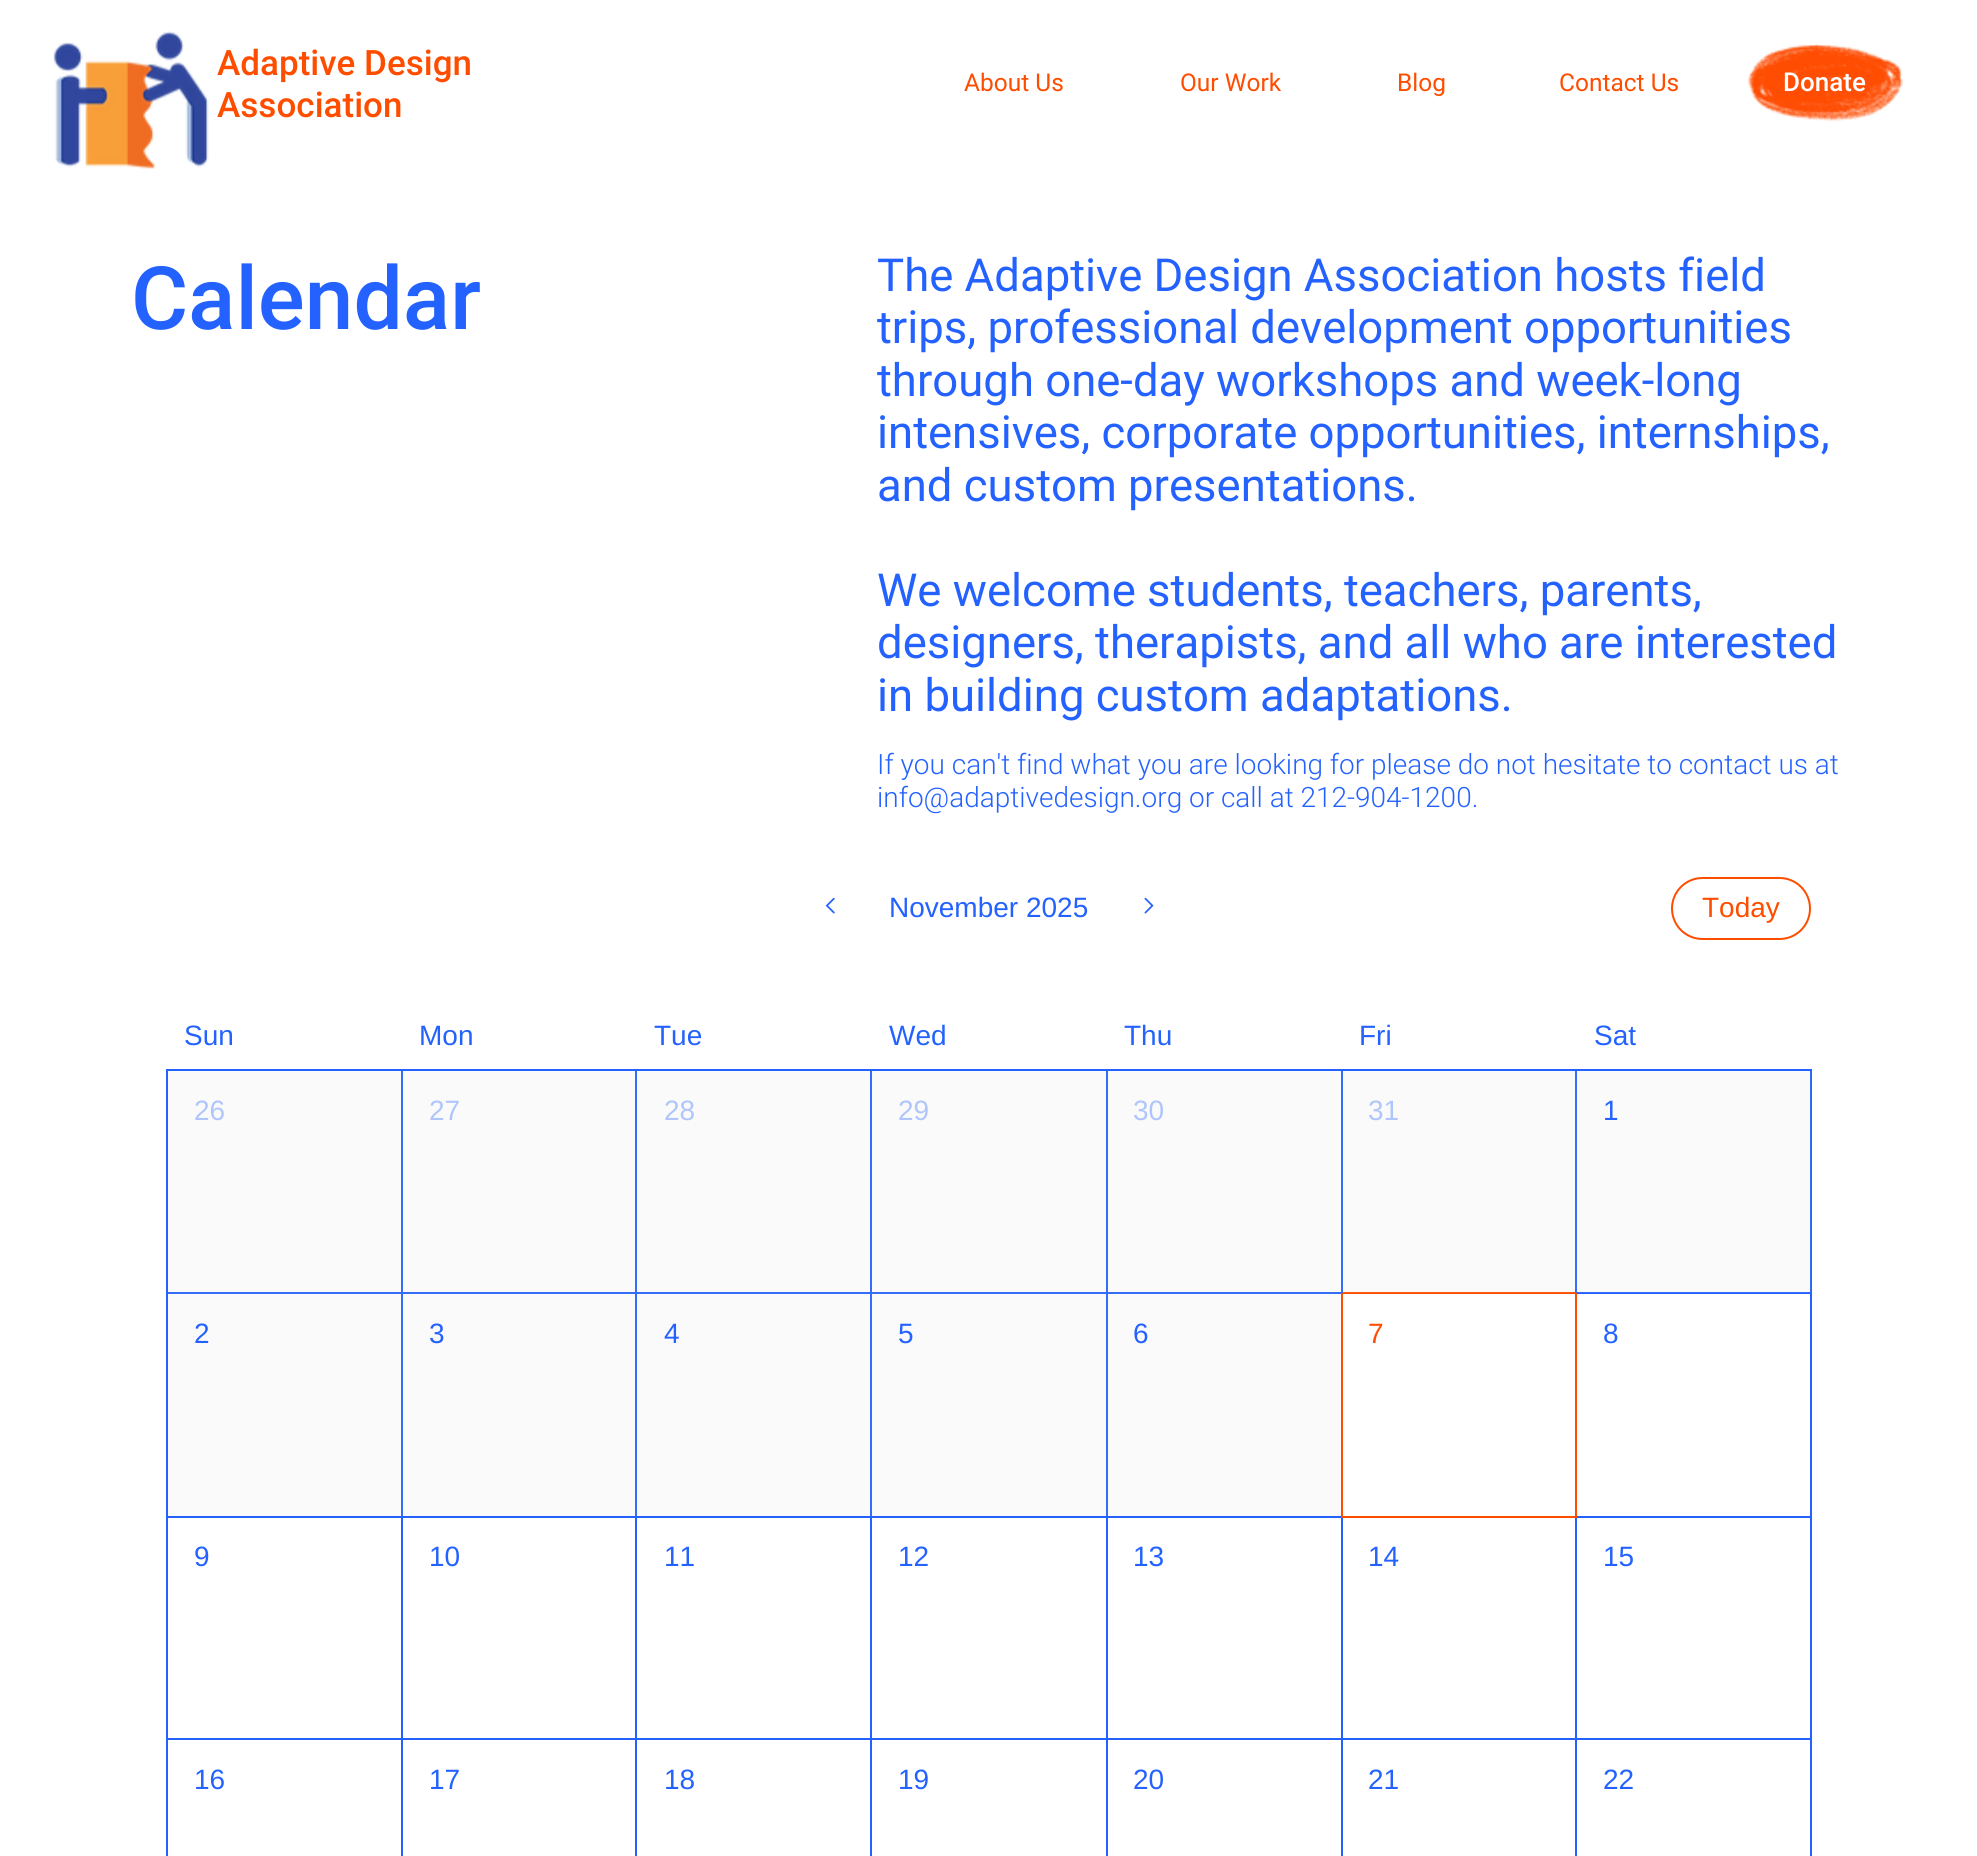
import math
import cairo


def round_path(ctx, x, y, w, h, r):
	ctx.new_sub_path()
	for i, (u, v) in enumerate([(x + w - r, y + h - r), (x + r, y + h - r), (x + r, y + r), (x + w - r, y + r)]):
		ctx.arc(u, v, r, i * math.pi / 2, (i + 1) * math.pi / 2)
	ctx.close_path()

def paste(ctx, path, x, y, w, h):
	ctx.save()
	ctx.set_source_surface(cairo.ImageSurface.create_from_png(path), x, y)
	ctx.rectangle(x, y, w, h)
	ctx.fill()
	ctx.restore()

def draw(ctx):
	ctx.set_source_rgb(1, 1, 1)
	ctx.paint()
	ctx.set_source_rgb(0.98, 0.98, 0.98)
	ctx.rectangle(1108, 1294, 233, 222)
	ctx.rectangle(872, 1294, 234, 222)
	ctx.rectangle(637, 1294, 233, 222)
	ctx.rectangle(403, 1294, 232, 222)
	ctx.rectangle(168, 1294, 233, 222)
	ctx.rectangle(1577, 1071, 233, 221)
	ctx.rectangle(1343, 1071, 232, 221)
	ctx.rectangle(1108, 1071, 233, 221)
	ctx.rectangle(872, 1071, 234, 221)
	ctx.rectangle(637, 1071, 233, 221)
	ctx.rectangle(403, 1071, 232, 221)
	ctx.rectangle(168, 1071, 233, 221)
	ctx.fill()
	paste(ctx, 'media/1.png', 53, 31, 156, 138)
	ctx.select_font_face('Roboto Medium')
	ctx.set_font_size(35)
	ctx.set_source_rgb(1, 0.302, 0)
	ctx.move_to(217, 75)
	ctx.show_text('Adaptive Design')
	ctx.move_to(217, 117)
	ctx.show_text('Association')
	ctx.select_font_face('Roboto')
	ctx.set_font_size(24.5)
	for x, y, s in [
		(964, 91, 'About Us'),
		(1180, 91, 'Our Work'),
		(1397, 91, 'Blog'),
		(1559, 91, 'Contact Us'),
	]:
		ctx.move_to(x, y)
		ctx.show_text(s)
	paste(ctx, 'media/2.png', 1748, 43, 155, 79)
	ctx.select_font_face('Roboto Medium')
	ctx.set_font_size(26)
	ctx.set_source_rgb(1, 1, 1)
	ctx.move_to(1783, 91)
	ctx.show_text('Donate')
	ctx.set_font_size(87.5)
	ctx.set_source_rgb(0.141, 0.384, 1)
	ctx.move_to(131, 329)
	ctx.show_text('Calendar')
	ctx.select_font_face('Roboto')
	ctx.set_font_size(45.5)
	for x, y, s in [
		(877, 291, 'The Adaptive Design Association hosts field'),
		(877, 343, 'trips, professional development opportunities'),
		(877, 396, 'through one-day workshops and week-long'),
		(877, 448, 'intensives, corporate opportunities, internships,'),
		(877, 501, 'and custom presentations.'),
		(877, 606, 'We welcome students, teachers, parents,'),
		(877, 658, 'designers, therapists, and all who are interested'),
		(877, 711, 'in building custom adaptations.'),
	]:
		ctx.move_to(x, y)
		ctx.show_text(s)
	ctx.select_font_face('Roboto Light')
	ctx.set_font_size(28)
	ctx.move_to(877, 774)
	ctx.show_text('If you can\'t find what you are looking for please do not hesitate to contact us at')
	ctx.move_to(877, 807)
	ctx.show_text('info@adaptivedesign.org or call at 212-904-1200.')
	paste(ctx, 'media/3.png', 825, 897, 10, 17)
	ctx.select_font_face('Liberation Sans')
	ctx.move_to(889, 917)
	ctx.show_text('November 2025')
	paste(ctx, 'media/4.png', 1144, 897, 10, 17)
	round_path(ctx, 1672, 878, 138, 61, 30.5)
	ctx.set_source_rgb(1, 0.302, 0)
	ctx.stroke()
	ctx.move_to(1702, 917)
	ctx.show_text('Today')
	ctx.set_source_rgb(0.141, 0.384, 1)
	for x, y, s in [
		(184, 1045, 'Sun'),
		(419, 1045, 'Mon'),
		(654, 1045, 'Tue'),
		(889, 1045, 'Wed'),
		(1124, 1045, 'Thu'),
		(1359, 1045, 'Fri'),
		(1594, 1045, 'Sat'),
	]:
		ctx.move_to(x, y)
		ctx.show_text(s)
	ctx.rectangle(166, 1069, 1645, 2)
	ctx.fill()
	ctx.set_source_rgb(0.208, 0.427, 0.98)
	ctx.rectangle(1575, 1292, 236, 1)
	ctx.fill()
	ctx.set_source_rgb(0.141, 0.384, 1)
	ctx.rectangle(1577, 1293, 234, 1)
	ctx.rectangle(166, 1516, 1645, 2)
	ctx.rectangle(166, 1738, 1645, 2)
	ctx.rectangle(1810, 1738, 2, 118)
	ctx.rectangle(1810, 1516, 2, 224)
	ctx.rectangle(1810, 1292, 2, 225)
	ctx.rectangle(1810, 1069, 2, 224)
	ctx.fill()
	ctx.set_source_rgb(0.208, 0.427, 0.98)
	ctx.rectangle(1810, 1071, 1, 222)
	ctx.fill()
	ctx.set_source_rgb(0.141, 0.384, 1)
	ctx.rectangle(166, 1738, 2, 118)
	ctx.rectangle(166, 1292, 2, 448)
	ctx.rectangle(166, 1069, 2, 224)
	ctx.fill()
	ctx.set_source_rgb(0.686, 0.773, 0.988)
	for x, y, s in [
		(194, 1120, '26'),
		(429, 1120, '27'),
		(664, 1120, '28'),
		(898, 1120, '29'),
		(1133, 1120, '30'),
	]:
		ctx.move_to(x, y)
		ctx.show_text(s)
	ctx.set_source_rgb(0.98, 0.353, 0.078)
	ctx.rectangle(1341, 1292, 234, 1)
	ctx.fill()
	ctx.set_source_rgb(1, 0.302, 0)
	ctx.rectangle(1341, 1293, 236, 1)
	ctx.fill()
	ctx.set_source_rgb(0.141, 0.384, 1)
	ctx.rectangle(1575, 1516, 2, 340)
	ctx.fill()
	ctx.set_source_rgb(1, 0.302, 0)
	ctx.rectangle(1575, 1292, 2, 225)
	ctx.fill()
	ctx.set_source_rgb(0.141, 0.384, 1)
	ctx.rectangle(1341, 1516, 2, 340)
	ctx.fill()
	ctx.set_source_rgb(1, 0.302, 0)
	ctx.rectangle(1341, 1516, 236, 2)
	ctx.rectangle(1341, 1292, 2, 225)
	ctx.fill()
	ctx.set_source_rgb(0.208, 0.427, 0.98)
	ctx.rectangle(1341, 1071, 2, 222)
	ctx.fill()
	ctx.set_source_rgb(0.686, 0.773, 0.988)
	ctx.move_to(1368, 1120)
	ctx.show_text('31')
	ctx.set_source_rgb(0.208, 0.427, 0.98)
	ctx.rectangle(1575, 1071, 2, 222)
	ctx.fill()
	ctx.set_source_rgb(0.141, 0.384, 1)
	ctx.move_to(1603, 1120)
	ctx.show_text('1')
	ctx.set_source_rgb(0.208, 0.427, 0.98)
	ctx.rectangle(168, 1293, 1173, 1)
	ctx.fill()
	ctx.rectangle(168, 1292, 1173, 1)
	ctx.fill()
	ctx.set_source_rgb(0.141, 0.384, 1)
	ctx.move_to(194, 1343)
	ctx.show_text('2')
	ctx.set_source_rgb(0.208, 0.427, 0.98)
	ctx.rectangle(401, 1071, 2, 445)
	ctx.fill()
	ctx.set_source_rgb(0.141, 0.384, 1)
	ctx.move_to(429, 1343)
	ctx.show_text('3')
	ctx.set_source_rgb(0.208, 0.427, 0.98)
	ctx.rectangle(635, 1071, 2, 445)
	ctx.fill()
	ctx.set_source_rgb(0.141, 0.384, 1)
	ctx.move_to(664, 1343)
	ctx.show_text('4')
	ctx.set_source_rgb(0.208, 0.427, 0.98)
	ctx.rectangle(870, 1071, 2, 445)
	ctx.fill()
	ctx.set_source_rgb(0.141, 0.384, 1)
	ctx.move_to(898, 1343)
	ctx.show_text('5')
	ctx.set_source_rgb(0.208, 0.427, 0.98)
	ctx.rectangle(1106, 1071, 2, 445)
	ctx.fill()
	ctx.set_source_rgb(0.141, 0.384, 1)
	ctx.move_to(1133, 1343)
	ctx.show_text('6')
	ctx.set_source_rgb(1, 0.302, 0)
	ctx.move_to(1368, 1343)
	ctx.show_text('7')
	ctx.set_source_rgb(0.141, 0.384, 1)
	for x, y, s in [
		(1603, 1343, '8'),
		(194, 1566, '9'),
		(429, 1566, '10'),
		(664, 1566, '11'),
		(898, 1566, '12'),
		(1133, 1566, '13'),
		(1368, 1566, '14'),
		(1603, 1566, '15'),
		(194, 1789, '16'),
	]:
		ctx.move_to(x, y)
		ctx.show_text(s)
	ctx.rectangle(401, 1516, 2, 340)
	ctx.fill()
	ctx.move_to(429, 1789)
	ctx.show_text('17')
	ctx.rectangle(635, 1516, 2, 340)
	ctx.fill()
	ctx.move_to(664, 1789)
	ctx.show_text('18')
	ctx.rectangle(870, 1516, 2, 340)
	ctx.fill()
	ctx.move_to(898, 1789)
	ctx.show_text('19')
	ctx.rectangle(1106, 1516, 2, 340)
	ctx.fill()
	for x, y, s in [
		(1133, 1789, '20'),
		(1368, 1789, '21'),
		(1603, 1789, '22'),
	]:
		ctx.move_to(x, y)
		ctx.show_text(s)


surface = cairo.ImageSurface(cairo.FORMAT_RGB24, 1977, 1856)
ctx = cairo.Context(surface)
options = cairo.FontOptions()
options.set_hint_metrics(cairo.HINT_METRICS_OFF)
options.set_hint_style(cairo.HINT_STYLE_NONE)
ctx.set_font_options(options)
ctx.set_miter_limit(4)
draw(ctx)
surface.write_to_png('image.png')
